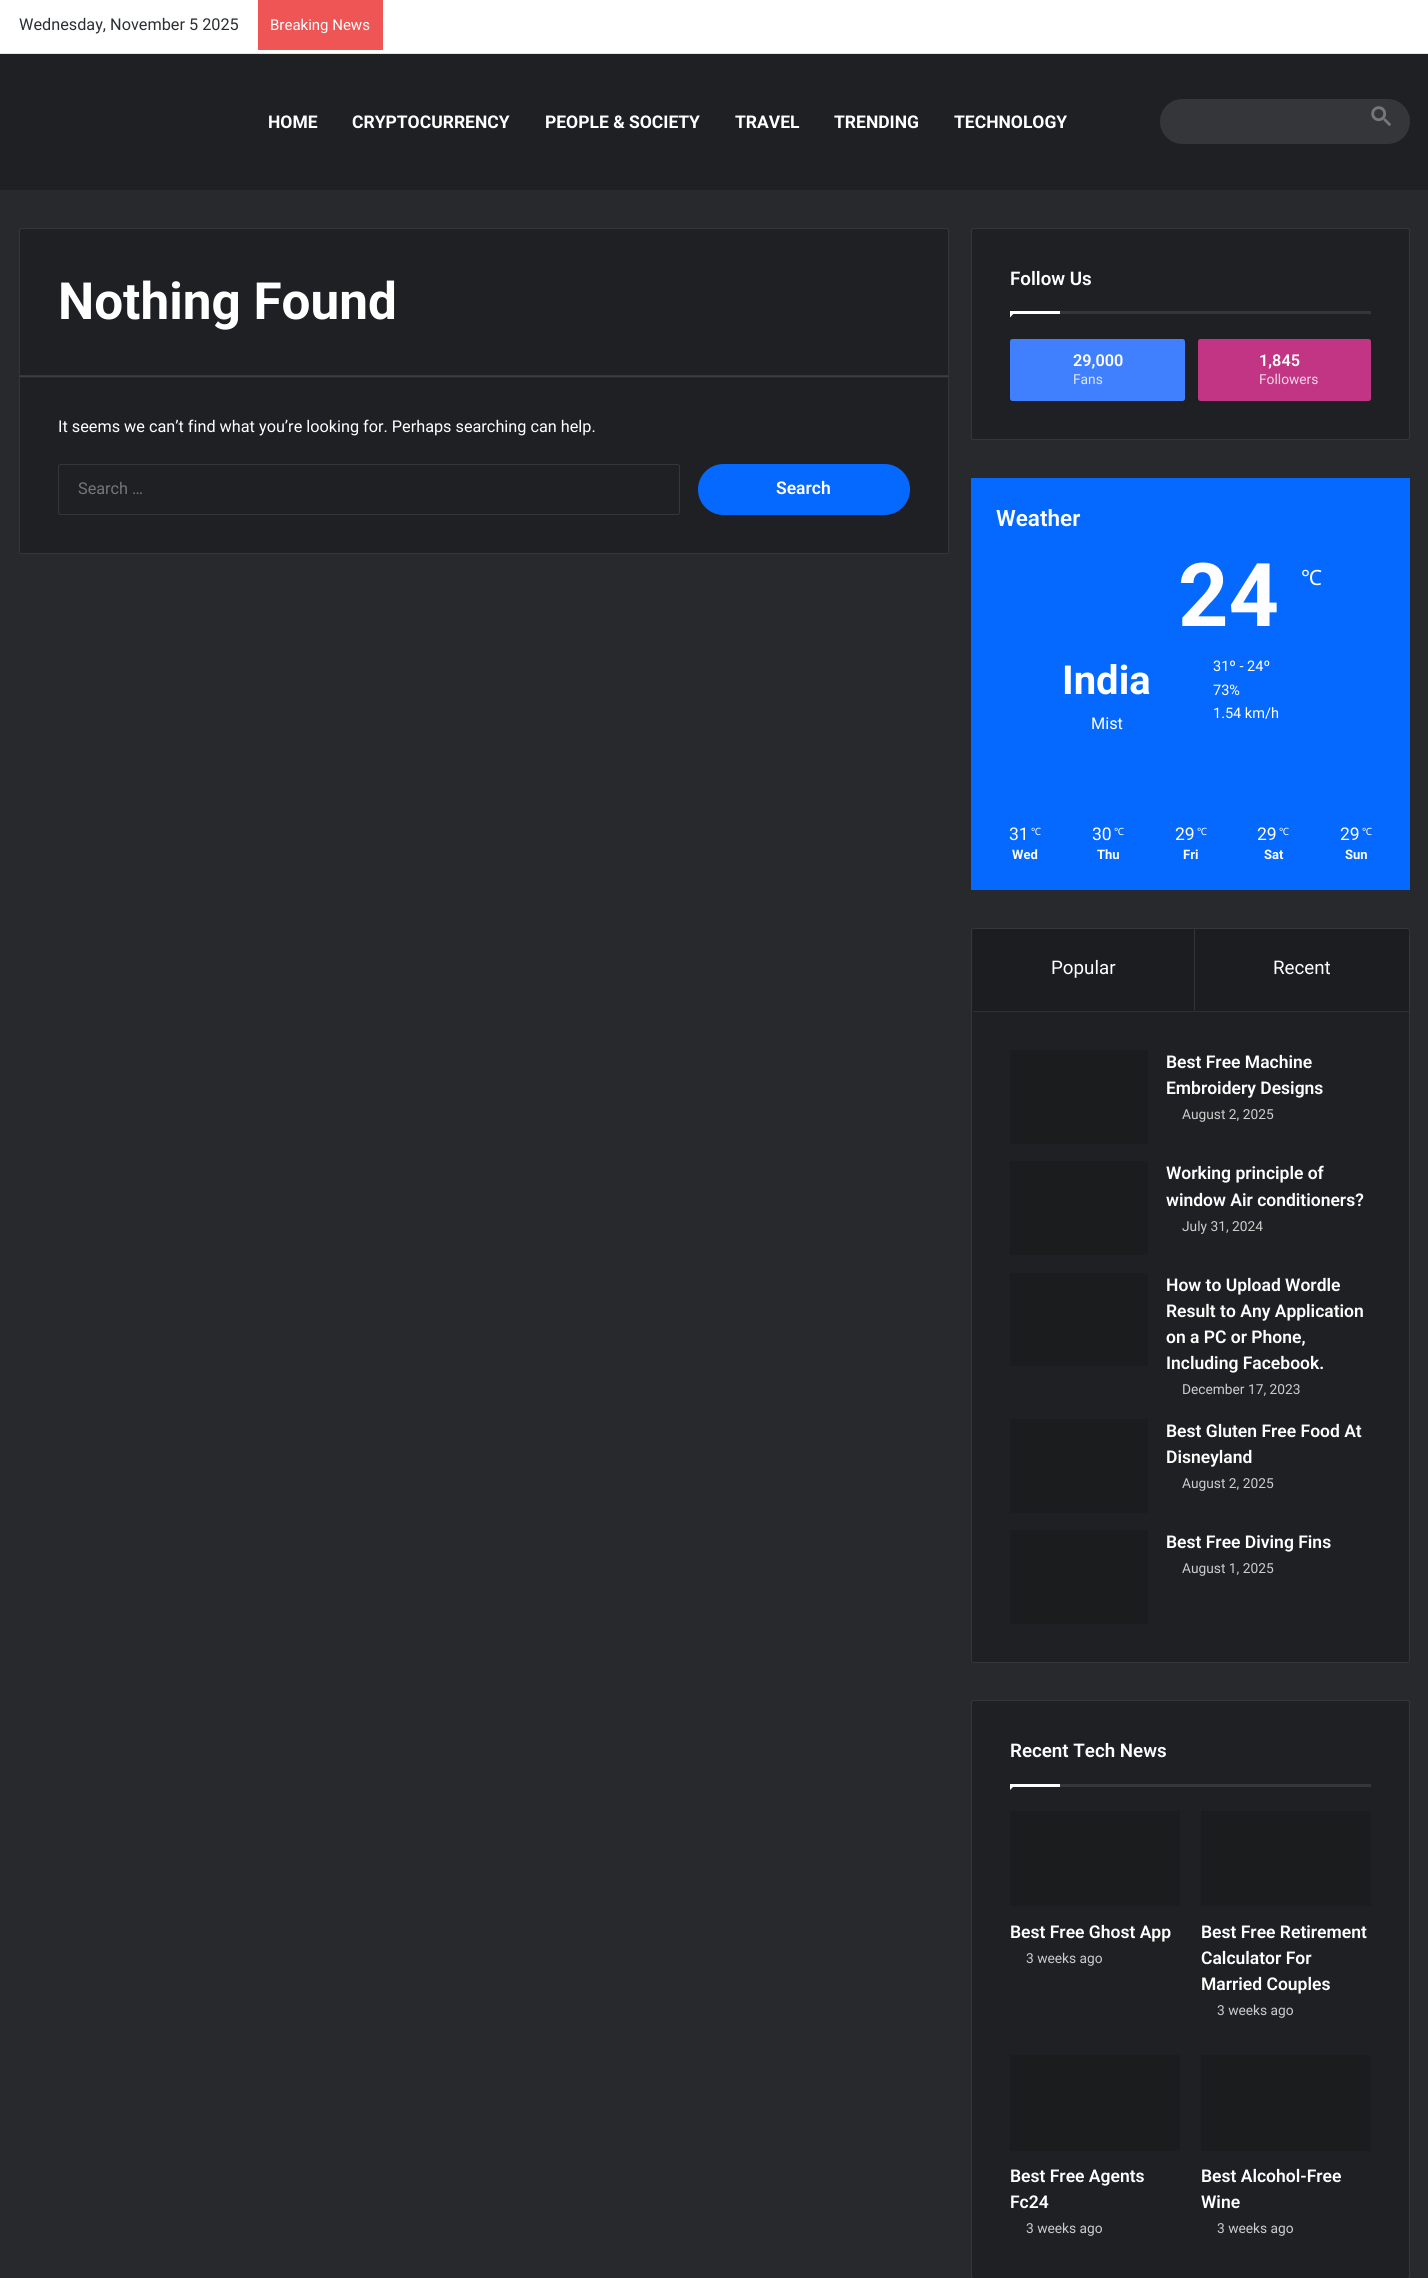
import math
import cairo


def round_path(ctx, x, y, w, h, r):
	ctx.new_sub_path()
	for i, (u, v) in enumerate([(x + w - r, y + h - r), (x + r, y + h - r), (x + r, y + r), (x + w - r, y + r)]):
		ctx.arc(u, v, r, i * math.pi / 2, (i + 1) * math.pi / 2)
	ctx.close_path()

def paste(ctx, path, x, y, w, h):
	ctx.save()
	ctx.set_source_surface(cairo.ImageSurface.create_from_png(path), x, y)
	ctx.rectangle(x, y, w, h)
	ctx.fill()
	ctx.restore()

def draw(ctx):
	ctx.set_source_rgb(0.153, 0.161, 0.176)
	ctx.paint()
	ctx.set_source_rgb(1, 1, 1)
	ctx.rectangle(0, 0, 1428, 53)
	ctx.fill()
	ctx.set_source_rgb(0.902, 0.902, 0.902)
	ctx.rectangle(0, 53, 1428, 1)
	ctx.fill()
	ctx.select_font_face('Roboto')
	ctx.set_font_size(16.25)
	ctx.set_source_rgb(0.173, 0.184, 0.204)
	ctx.move_to(19, 30)
	ctx.show_text('Wednesday, November 5 2025')
	ctx.set_source_rgb(0.941, 0.333, 0.333)
	ctx.rectangle(258, 0, 125, 50)
	ctx.fill()
	ctx.set_font_size(15)
	ctx.set_source_rgb(1, 1, 1)
	ctx.move_to(270, 30)
	ctx.show_text('Breaking News')
	ctx.set_source_rgb(0.122, 0.125, 0.141)
	ctx.rectangle(0, 54, 1428, 136)
	ctx.fill()
	ctx.select_font_face('Roboto', cairo.FONT_SLANT_NORMAL, cairo.FONT_WEIGHT_BOLD)
	ctx.set_font_size(17.5)
	ctx.set_source_rgb(1, 1, 1)
	for x, y, s in [
		(268, 128, 'HOME'),
		(352, 128, 'CRYPTOCURRENCY'),
		(545, 128, 'PEOPLE & SOCIETY'),
		(735, 128, 'TRAVEL'),
		(834, 128, 'TRENDING'),
		(954, 128, 'TECHNOLOGY'),
	]:
		ctx.move_to(x, y)
		ctx.show_text(s)
	ctx.set_source_rgb(0.208, 0.212, 0.227)
	round_path(ctx, 1160, 99, 250, 45, 22.5)
	ctx.fill()
	paste(ctx, 'media/1.png', 1371, 106, 20, 20)
	ctx.set_source_rgb(0.122, 0.125, 0.141)
	ctx.new_path()
	ctx.move_to(21.5, 228.5)
	ctx.line_to(946.5, 228.5)
	ctx.curve_to(947.5, 228.5, 948.5, 229.5, 948.5, 230.5)
	ctx.line_to(948.5, 375.5)
	ctx.line_to(19.5, 375.5)
	ctx.line_to(19.5, 230.5)
	ctx.curve_to(19.5, 229.5, 20.5, 228.5, 21.5, 228.5)
	ctx.close_path()
	ctx.fill_preserve()
	ctx.set_source_rgb(0.208, 0.212, 0.227)
	ctx.set_line_width(1)
	ctx.stroke()
	ctx.set_font_size(51.25)
	ctx.set_source_rgb(1, 1, 1)
	ctx.move_to(58, 319)
	ctx.show_text('Nothing Found')
	ctx.set_source_rgb(0.239, 0.243, 0.259)
	ctx.rectangle(19, 376, 930, 1)
	ctx.fill()
	ctx.set_source_rgb(0.122, 0.125, 0.141)
	ctx.new_path()
	ctx.move_to(19, 378)
	ctx.line_to(949, 378)
	ctx.line_to(949, 551.5)
	ctx.curve_to(949, 553, 948, 554, 946.5, 554)
	ctx.line_to(21.5, 554)
	ctx.curve_to(20, 554, 19, 553, 19, 551.5)
	ctx.close_path()
	ctx.fill()
	ctx.set_source_rgb(0.208, 0.212, 0.227)
	ctx.rectangle(948, 378, 1, 175)
	ctx.rectangle(20, 553, 928, 1)
	ctx.rectangle(19, 378, 1, 175)
	ctx.fill()
	ctx.select_font_face('Roboto')
	ctx.set_font_size(16.25)
	ctx.set_source_rgb(1, 1, 1)
	ctx.move_to(58, 432)
	ctx.show_text('It seems we can’t find what you’re looking for. Perhaps searching can help.')
	round_path(ctx, 58.5, 464.5, 621, 50, 2)
	ctx.set_source_rgb(0.208, 0.212, 0.227)
	ctx.stroke()
	ctx.set_source_rgb(0.459, 0.459, 0.459)
	ctx.move_to(78, 494)
	ctx.show_text('Search …')
	ctx.set_source_rgb(0.024, 0.412, 1)
	round_path(ctx, 698, 464, 212, 51, 25.5)
	ctx.fill()
	ctx.select_font_face('Roboto SemiBold')
	ctx.set_font_size(17.5)
	ctx.set_source_rgb(1, 1, 1)
	ctx.move_to(776, 494)
	ctx.show_text('Search')
	ctx.set_source_rgb(0.122, 0.125, 0.141)
	round_path(ctx, 971.5, 228.5, 438, 211, 2)
	ctx.fill_preserve()
	ctx.set_source_rgb(0.208, 0.212, 0.227)
	ctx.stroke()
	ctx.rectangle(1060, 311, 311, 3)
	ctx.fill()
	ctx.set_font_size(18.75)
	ctx.set_source_rgb(1, 1, 1)
	ctx.move_to(1010, 285)
	ctx.show_text('Follow Us')
	ctx.new_path()
	ctx.move_to(1010, 311)
	ctx.line_to(1016, 311)
	ctx.line_to(1010, 317.5)
	ctx.close_path()
	ctx.fill()
	ctx.rectangle(1010, 311, 50, 3)
	ctx.fill()
	ctx.set_source_rgb(0.251, 0.502, 1)
	round_path(ctx, 1010, 339, 175, 62, 2.5)
	ctx.fill()
	ctx.set_font_size(16.25)
	ctx.set_source_rgb(1, 1, 1)
	ctx.move_to(1073, 366)
	ctx.show_text('29,000')
	ctx.select_font_face('Roboto')
	ctx.set_font_size(13.75)
	ctx.set_source_rgb(0.851, 0.902, 1)
	ctx.move_to(1073, 384)
	ctx.show_text('Fans')
	ctx.set_source_rgb(0.757, 0.208, 0.518)
	round_path(ctx, 1198, 339, 173, 62, 2.5)
	ctx.fill()
	ctx.select_font_face('Roboto SemiBold')
	ctx.set_font_size(16.25)
	ctx.set_source_rgb(1, 1, 1)
	ctx.move_to(1259, 366)
	ctx.show_text('1,845')
	ctx.select_font_face('Roboto')
	ctx.set_font_size(13.75)
	ctx.set_source_rgb(0.953, 0.843, 0.902)
	ctx.move_to(1259, 384)
	ctx.show_text('Followers')
	ctx.set_source_rgb(0.024, 0.412, 1)
	ctx.rectangle(971, 478, 439, 412)
	ctx.fill()
	ctx.select_font_face('Roboto SemiBold')
	ctx.set_font_size(22.5)
	ctx.set_source_rgb(1, 1, 1)
	ctx.move_to(996, 526)
	ctx.show_text('Weather')
	ctx.select_font_face('Roboto', cairo.FONT_SLANT_NORMAL, cairo.FONT_WEIGHT_BOLD)
	ctx.set_font_size(40)
	ctx.move_to(1062, 694)
	ctx.show_text('India')
	ctx.select_font_face('Roboto')
	ctx.set_font_size(16.25)
	ctx.move_to(1091, 729)
	ctx.show_text('Mist')
	ctx.select_font_face('Roboto', cairo.FONT_SLANT_NORMAL, cairo.FONT_WEIGHT_BOLD)
	ctx.set_font_size(88)
	ctx.move_to(1178, 626)
	ctx.show_text('24')
	ctx.select_font_face('Noto Sans')
	ctx.set_font_size(21)
	ctx.move_to(1301, 585)
	ctx.show_text('℃')
	ctx.select_font_face('Roboto')
	ctx.set_font_size(14.5)
	for x, y, s in [
		(1213, 671, '31º - 24º'),
		(1213, 695, '73%'),
		(1213, 718, '1.54 km/h'),
	]:
		ctx.move_to(x, y)
		ctx.show_text(s)
	ctx.set_font_size(17.5)
	ctx.move_to(1009, 840)
	ctx.show_text('31')
	ctx.select_font_face('Noto Sans')
	ctx.set_font_size(10)
	ctx.move_to(1031, 835)
	ctx.show_text('℃')
	ctx.select_font_face('Roboto', cairo.FONT_SLANT_NORMAL, cairo.FONT_WEIGHT_BOLD)
	ctx.set_font_size(13)
	ctx.move_to(1012, 859)
	ctx.show_text('Wed')
	ctx.select_font_face('Roboto')
	ctx.set_font_size(17.5)
	ctx.move_to(1092, 840)
	ctx.show_text('30')
	ctx.select_font_face('Noto Sans')
	ctx.set_font_size(10)
	ctx.move_to(1114, 835)
	ctx.show_text('℃')
	ctx.select_font_face('Roboto', cairo.FONT_SLANT_NORMAL, cairo.FONT_WEIGHT_BOLD)
	ctx.set_font_size(13)
	ctx.move_to(1097, 859)
	ctx.show_text('Thu')
	ctx.select_font_face('Roboto')
	ctx.set_font_size(17.5)
	ctx.move_to(1175, 840)
	ctx.show_text('29')
	ctx.select_font_face('Noto Sans')
	ctx.set_font_size(10)
	ctx.move_to(1197, 835)
	ctx.show_text('℃')
	ctx.select_font_face('Roboto', cairo.FONT_SLANT_NORMAL, cairo.FONT_WEIGHT_BOLD)
	ctx.set_font_size(13)
	ctx.move_to(1183, 859)
	ctx.show_text('Fri')
	ctx.select_font_face('Roboto')
	ctx.set_font_size(17.5)
	ctx.move_to(1257, 840)
	ctx.show_text('29')
	ctx.select_font_face('Noto Sans')
	ctx.set_font_size(10)
	ctx.move_to(1279, 835)
	ctx.show_text('℃')
	ctx.select_font_face('Roboto', cairo.FONT_SLANT_NORMAL, cairo.FONT_WEIGHT_BOLD)
	ctx.set_font_size(13)
	ctx.move_to(1264, 859)
	ctx.show_text('Sat')
	ctx.select_font_face('Roboto')
	ctx.set_font_size(17.5)
	ctx.move_to(1340, 840)
	ctx.show_text('29')
	ctx.select_font_face('Noto Sans')
	ctx.set_font_size(10)
	ctx.move_to(1362, 835)
	ctx.show_text('℃')
	ctx.select_font_face('Roboto', cairo.FONT_SLANT_NORMAL, cairo.FONT_WEIGHT_BOLD)
	ctx.set_font_size(13)
	ctx.move_to(1345, 859)
	ctx.show_text('Sun')
	ctx.set_source_rgb(0.122, 0.125, 0.141)
	round_path(ctx, 971.5, 928.5, 438, 734, 2)
	ctx.fill_preserve()
	ctx.set_source_rgb(0.208, 0.212, 0.227)
	ctx.stroke()
	ctx.set_source_rgb(0.173, 0.188, 0.2)
	ctx.rectangle(973, 1011, 436, 1)
	ctx.fill()
	ctx.set_source_rgb(0.11, 0.114, 0.125)
	ctx.rectangle(973, 929, 222, 82)
	ctx.fill()
	ctx.set_source_rgb(0.2, 0.204, 0.212)
	ctx.new_path()
	ctx.move_to(1195, 929)
	ctx.line_to(1195, 1011)
	ctx.line_to(1194, 1010)
	ctx.line_to(1194, 929)
	ctx.close_path()
	ctx.fill()
	ctx.select_font_face('Roboto')
	ctx.set_font_size(18.75)
	ctx.set_source_rgb(1, 1, 1)
	ctx.move_to(1051, 974)
	ctx.show_text('Popular')
	ctx.set_source_rgba(0, 0, 0, 0.1)
	ctx.rectangle(1195, 929, 214, 82)
	ctx.fill()
	ctx.set_source_rgb(1, 1, 1)
	ctx.move_to(1273, 974)
	ctx.show_text('Recent')
	ctx.set_source_rgb(0.106, 0.11, 0.118)
	ctx.rectangle(1010, 1050, 138, 94)
	ctx.fill()
	ctx.select_font_face('Roboto SemiBold')
	ctx.set_font_size(17.5)
	ctx.set_source_rgb(1, 1, 1)
	ctx.move_to(1166, 1068)
	ctx.show_text('Best Free Machine')
	ctx.move_to(1166, 1094)
	ctx.show_text('Embroidery Designs')
	ctx.select_font_face('Roboto')
	ctx.set_font_size(13.75)
	ctx.set_source_rgb(0.8, 0.8, 0.8)
	ctx.move_to(1182, 1119)
	ctx.show_text('August 2, 2025')
	ctx.set_source_rgb(0.106, 0.11, 0.118)
	ctx.rectangle(1010, 1161, 138, 94)
	ctx.fill()
	ctx.select_font_face('Roboto SemiBold')
	ctx.set_font_size(17.5)
	ctx.set_source_rgb(1, 1, 1)
	ctx.move_to(1166, 1179)
	ctx.show_text('Working principle of')
	ctx.move_to(1166, 1206)
	ctx.show_text('window Air conditioners?')
	ctx.select_font_face('Roboto')
	ctx.set_font_size(13.75)
	ctx.set_source_rgb(0.8, 0.8, 0.8)
	ctx.move_to(1182, 1231)
	ctx.show_text('July 31, 2024')
	ctx.set_source_rgb(0.106, 0.11, 0.118)
	ctx.rectangle(1010, 1273, 138, 93)
	ctx.fill()
	ctx.select_font_face('Roboto SemiBold')
	ctx.set_font_size(17.5)
	ctx.set_source_rgb(1, 1, 1)
	for x, y, s in [
		(1166, 1291, 'How to Upload Wordle'),
		(1166, 1317, 'Result to Any Application'),
		(1166, 1343, 'on a PC or Phone,'),
		(1166, 1369, 'Including Facebook.'),
	]:
		ctx.move_to(x, y)
		ctx.show_text(s)
	ctx.select_font_face('Roboto')
	ctx.set_font_size(13.75)
	ctx.set_source_rgb(0.8, 0.8, 0.8)
	ctx.move_to(1182, 1394)
	ctx.show_text('December 17, 2023')
	ctx.set_source_rgb(0.106, 0.11, 0.118)
	ctx.rectangle(1010, 1419, 138, 94)
	ctx.fill()
	ctx.select_font_face('Roboto SemiBold')
	ctx.set_font_size(17.5)
	ctx.set_source_rgb(1, 1, 1)
	ctx.move_to(1166, 1437)
	ctx.show_text('Best Gluten Free Food At')
	ctx.move_to(1166, 1463)
	ctx.show_text('Disneyland')
	ctx.select_font_face('Roboto')
	ctx.set_font_size(13.75)
	ctx.set_source_rgb(0.8, 0.8, 0.8)
	ctx.move_to(1182, 1488)
	ctx.show_text('August 2, 2025')
	ctx.set_source_rgb(0.106, 0.11, 0.118)
	ctx.rectangle(1010, 1530, 138, 94)
	ctx.fill()
	ctx.select_font_face('Roboto SemiBold')
	ctx.set_font_size(17.5)
	ctx.set_source_rgb(1, 1, 1)
	ctx.move_to(1166, 1548)
	ctx.show_text('Best Free Diving Fins')
	ctx.select_font_face('Roboto')
	ctx.set_font_size(13.75)
	ctx.set_source_rgb(0.8, 0.8, 0.8)
	ctx.move_to(1182, 1573)
	ctx.show_text('August 1, 2025')
	ctx.set_source_rgb(0.122, 0.125, 0.141)
	round_path(ctx, 971.5, 1700.5, 438, 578, 2)
	ctx.fill_preserve()
	ctx.set_source_rgb(0.208, 0.212, 0.227)
	ctx.stroke()
	ctx.rectangle(1060, 1784, 311, 3)
	ctx.fill()
	ctx.select_font_face('Roboto SemiBold')
	ctx.set_font_size(18.75)
	ctx.set_source_rgb(1, 1, 1)
	ctx.move_to(1010, 1757)
	ctx.show_text('Recent Tech News')
	ctx.new_path()
	ctx.move_to(1010, 1784)
	ctx.line_to(1016, 1784)
	ctx.line_to(1010, 1790)
	ctx.close_path()
	ctx.fill()
	ctx.rectangle(1010, 1784, 50, 3)
	ctx.fill()
	ctx.set_source_rgb(0.106, 0.11, 0.118)
	ctx.rectangle(1010, 1811, 170, 95)
	ctx.fill()
	ctx.set_font_size(17.5)
	ctx.set_source_rgb(1, 1, 1)
	ctx.move_to(1010, 1938)
	ctx.show_text('Best Free Ghost App')
	ctx.select_font_face('Roboto')
	ctx.set_font_size(13.75)
	ctx.set_source_rgb(0.8, 0.8, 0.8)
	ctx.move_to(1026, 1963)
	ctx.show_text('3 weeks ago')
	ctx.set_source_rgb(0.106, 0.11, 0.118)
	ctx.rectangle(1201, 1811, 170, 95)
	ctx.fill()
	ctx.select_font_face('Roboto SemiBold')
	ctx.set_font_size(17.5)
	ctx.set_source_rgb(1, 1, 1)
	for x, y, s in [
		(1201, 1938, 'Best Free Retirement'),
		(1201, 1964, 'Calculator For'),
		(1201, 1990, 'Married Couples'),
	]:
		ctx.move_to(x, y)
		ctx.show_text(s)
	ctx.select_font_face('Roboto')
	ctx.set_font_size(13.75)
	ctx.set_source_rgb(0.8, 0.8, 0.8)
	ctx.move_to(1217, 2015)
	ctx.show_text('3 weeks ago')
	ctx.set_source_rgb(0.106, 0.11, 0.118)
	ctx.rectangle(1010, 2055, 170, 96)
	ctx.fill()
	ctx.select_font_face('Roboto SemiBold')
	ctx.set_font_size(17.5)
	ctx.set_source_rgb(1, 1, 1)
	ctx.move_to(1010, 2182)
	ctx.show_text('Best Free Agents')
	ctx.move_to(1010, 2208)
	ctx.show_text('Fc24')
	ctx.select_font_face('Roboto')
	ctx.set_font_size(13.75)
	ctx.set_source_rgb(0.8, 0.8, 0.8)
	ctx.move_to(1026, 2233)
	ctx.show_text('3 weeks ago')
	ctx.set_source_rgb(0.106, 0.11, 0.118)
	ctx.rectangle(1201, 2055, 170, 96)
	ctx.fill()
	ctx.select_font_face('Roboto SemiBold')
	ctx.set_font_size(17.5)
	ctx.set_source_rgb(1, 1, 1)
	ctx.move_to(1201, 2182)
	ctx.show_text('Best Alcohol-Free')
	ctx.move_to(1201, 2208)
	ctx.show_text('Wine')
	ctx.select_font_face('Roboto')
	ctx.set_font_size(13.75)
	ctx.set_source_rgb(0.8, 0.8, 0.8)
	ctx.move_to(1217, 2233)
	ctx.show_text('3 weeks ago')


surface = cairo.ImageSurface(cairo.FORMAT_RGB24, 1428, 2278)
ctx = cairo.Context(surface)
options = cairo.FontOptions()
options.set_hint_metrics(cairo.HINT_METRICS_OFF)
options.set_hint_style(cairo.HINT_STYLE_NONE)
ctx.set_font_options(options)
ctx.set_miter_limit(4)
draw(ctx)
surface.write_to_png('image.png')
